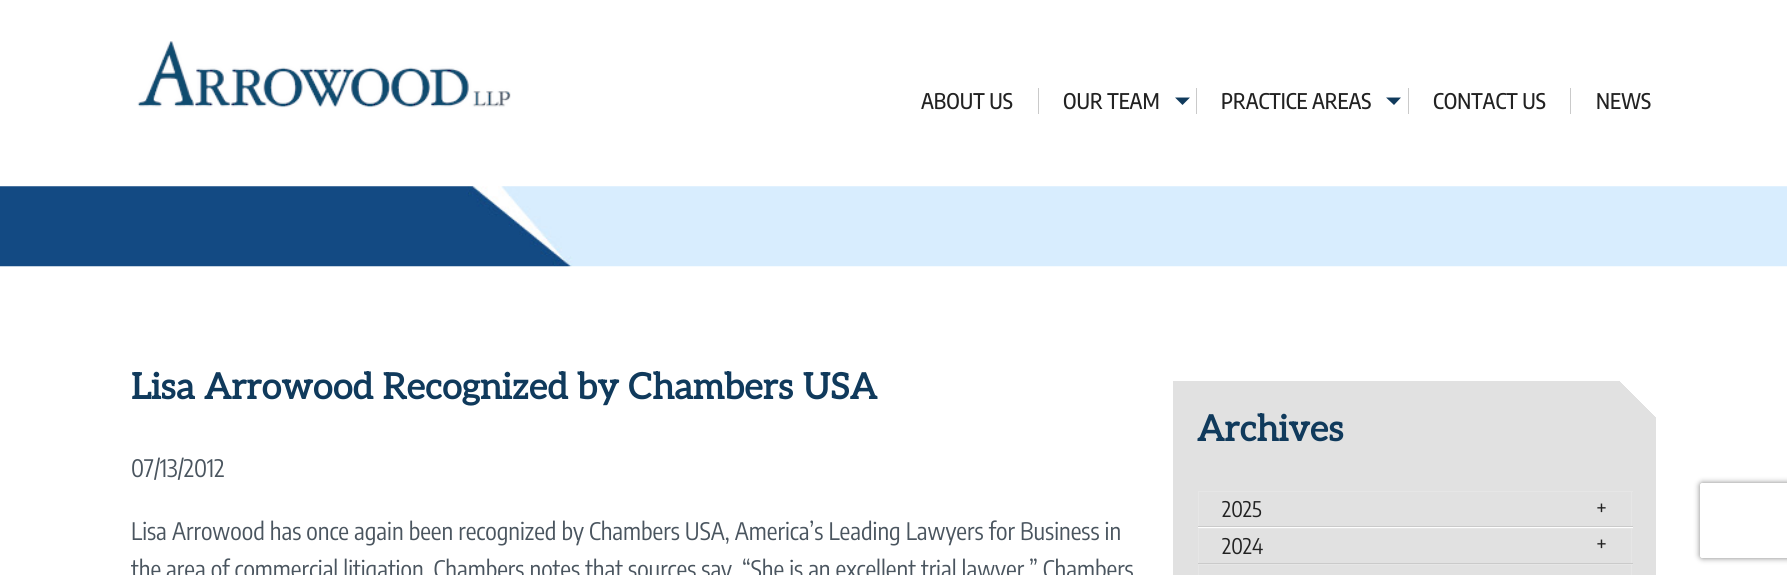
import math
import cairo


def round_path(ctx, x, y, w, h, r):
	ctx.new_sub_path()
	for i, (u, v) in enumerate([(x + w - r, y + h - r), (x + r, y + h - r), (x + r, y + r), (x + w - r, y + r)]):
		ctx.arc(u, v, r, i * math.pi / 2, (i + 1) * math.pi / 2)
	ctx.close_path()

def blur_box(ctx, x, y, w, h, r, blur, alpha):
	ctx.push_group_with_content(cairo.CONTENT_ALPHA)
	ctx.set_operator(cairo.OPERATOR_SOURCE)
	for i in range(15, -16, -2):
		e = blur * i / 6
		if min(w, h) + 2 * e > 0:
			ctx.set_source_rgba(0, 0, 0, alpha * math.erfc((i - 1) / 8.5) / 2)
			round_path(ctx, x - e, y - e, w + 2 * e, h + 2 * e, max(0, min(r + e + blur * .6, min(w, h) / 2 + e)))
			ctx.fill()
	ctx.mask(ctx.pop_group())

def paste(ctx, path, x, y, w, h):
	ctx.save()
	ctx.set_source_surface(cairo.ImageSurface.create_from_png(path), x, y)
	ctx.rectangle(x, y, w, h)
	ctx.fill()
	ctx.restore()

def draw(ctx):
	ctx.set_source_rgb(1, 1, 1)
	ctx.paint()
	paste(ctx, 'media/1.png', 137, 41, 374, 67)
	ctx.set_source_rgb(0.792, 0.792, 0.792)
	ctx.rectangle(1038, 88, 1, 26)
	ctx.fill()
	ctx.select_font_face('Encode Sans Condensed Medium')
	ctx.set_font_size(21.5)
	ctx.set_source_rgb(0.133, 0.133, 0.133)
	ctx.move_to(921, 109)
	ctx.show_text('ABOUT US')
	ctx.set_source_rgb(0.792, 0.792, 0.792)
	ctx.rectangle(1196, 88, 1, 26)
	ctx.fill()
	ctx.set_source_rgb(0.133, 0.133, 0.133)
	ctx.move_to(1063, 109)
	ctx.show_text('OUR TEAM')
	ctx.set_source_rgb(0.063, 0.227, 0.361)
	ctx.new_path()
	ctx.move_to(1175, 97.5)
	ctx.line_to(1190, 97.5)
	ctx.line_to(1182.5, 105)
	ctx.close_path()
	ctx.fill()
	ctx.set_source_rgb(0.792, 0.792, 0.792)
	ctx.rectangle(1408, 88, 1, 26)
	ctx.fill()
	ctx.set_source_rgb(0.133, 0.133, 0.133)
	ctx.move_to(1221, 109)
	ctx.show_text('PRACTICE AREAS')
	ctx.set_source_rgb(0.063, 0.227, 0.361)
	ctx.new_path()
	ctx.move_to(1386, 97.5)
	ctx.line_to(1401, 97.5)
	ctx.line_to(1394, 105)
	ctx.close_path()
	ctx.fill()
	ctx.set_source_rgb(0.792, 0.792, 0.792)
	ctx.rectangle(1570, 88, 1, 26)
	ctx.fill()
	ctx.set_source_rgb(0.133, 0.133, 0.133)
	ctx.move_to(1433, 109)
	ctx.show_text('CONTACT US')
	ctx.move_to(1596, 109)
	ctx.show_text('NEWS')
	paste(ctx, 'media/2.png', 0, 186, 1787, 81)
	ctx.select_font_face('Aleo', cairo.FONT_SLANT_NORMAL, cairo.FONT_WEIGHT_BOLD)
	ctx.set_font_size(36)
	ctx.set_source_rgb(0.063, 0.227, 0.361)
	ctx.move_to(131, 399)
	ctx.show_text('Lisa Arrowood Recognized by Chambers USA')
	ctx.select_font_face('Encode Sans Condensed')
	ctx.set_font_size(24)
	ctx.set_source_rgb(0.29, 0.333, 0.373)
	for x, y, s in [
		(131, 477, '07/13/2012'),
		(131, 540, 'Lisa Arrowood has once again been recognized by Chambers USA, America’s Leading Lawyers for Business in'),
		(131, 578, 'the area of commercial litigation. Chambers notes that sources say, “She is an excellent trial lawyer.” Chambers'),
	]:
		ctx.move_to(x, y)
		ctx.show_text(s)
	gradient = cairo.LinearGradient(1479, 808, 1113, 441)
	gradient.add_color_stop_rgba(0, 1, 1, 1, 1)
	gradient.add_color_stop_rgba(0, 0.882, 0.882, 0.882, 1)
	ctx.set_source(gradient)
	ctx.rectangle(1173, 381, 237, 194)
	ctx.fill()
	gradient = cairo.LinearGradient(1716, 441, 1350, 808)
	gradient.add_color_stop_rgba(0.05, 0.882, 0.882, 0.882, 0)
	gradient.add_color_stop_rgba(0.05, 0.882, 0.882, 0.882, 1)
	ctx.set_source(gradient)
	ctx.rectangle(1410, 381, 246, 194)
	ctx.fill()
	ctx.select_font_face('Aleo', cairo.FONT_SLANT_NORMAL, cairo.FONT_WEIGHT_BOLD)
	ctx.set_font_size(36)
	ctx.set_source_rgb(0.063, 0.227, 0.361)
	ctx.move_to(1197, 441)
	ctx.show_text('Archives')
	ctx.set_source_rgb(0.996, 0.996, 0.996)
	ctx.rectangle(1198, 527, 435, 1)
	ctx.fill()
	ctx.set_source_rgb(0.792, 0.792, 0.792)
	ctx.rectangle(1198, 526, 435, 1)
	ctx.fill()
	ctx.set_source_rgb(0.902, 0.902, 0.902)
	ctx.rectangle(1198, 491, 435, 1)
	ctx.rectangle(1631, 491, 1, 35)
	ctx.rectangle(1198, 491, 1, 35)
	ctx.fill()
	ctx.select_font_face('Encode Sans Condensed')
	ctx.set_font_size(21.5)
	ctx.set_source_rgb(0.133, 0.133, 0.133)
	ctx.move_to(1222, 517)
	ctx.show_text('2025')
	ctx.move_to(1596, 516)
	ctx.show_text('+')
	ctx.set_source_rgb(0.792, 0.792, 0.792)
	ctx.rectangle(1198, 563, 435, 1)
	ctx.fill()
	ctx.set_source_rgb(0.902, 0.902, 0.902)
	ctx.rectangle(1198, 528, 435, 1)
	ctx.rectangle(1631, 528, 1, 35)
	ctx.rectangle(1198, 528, 1, 35)
	ctx.fill()
	ctx.set_source_rgb(0.133, 0.133, 0.133)
	ctx.move_to(1222, 554)
	ctx.show_text('2024')
	ctx.move_to(1596, 552)
	ctx.show_text('+')
	ctx.set_source_rgb(0.902, 0.902, 0.902)
	ctx.rectangle(1198, 564, 435, 1)
	ctx.rectangle(1631, 564, 1, 11)
	ctx.rectangle(1198, 564, 1, 11)
	ctx.fill()
	ctx.save()
	ctx.set_fill_rule(cairo.FILL_RULE_EVEN_ODD)
	ctx.new_path()
	ctx.move_to(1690, 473)
	ctx.line_to(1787, 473)
	ctx.line_to(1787, 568)
	ctx.line_to(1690, 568)
	ctx.close_path()
	ctx.move_to(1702.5, 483)
	ctx.line_to(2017.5, 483)
	ctx.curve_to(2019, 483, 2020, 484, 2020, 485.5)
	ctx.line_to(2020, 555.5)
	ctx.curve_to(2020, 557, 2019, 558, 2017.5, 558)
	ctx.line_to(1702.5, 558)
	ctx.curve_to(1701, 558, 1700, 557, 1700, 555.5)
	ctx.line_to(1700, 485.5)
	ctx.curve_to(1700, 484, 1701, 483, 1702.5, 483)
	ctx.close_path()
	ctx.clip()
	ctx.set_source_rgb(0.502, 0.502, 0.502)
	blur_box(ctx, 1700, 483, 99, 75, 2.5, 3, 1)
	ctx.restore()


surface = cairo.ImageSurface(cairo.FORMAT_RGB24, 1787, 575)
ctx = cairo.Context(surface)
options = cairo.FontOptions()
options.set_hint_metrics(cairo.HINT_METRICS_OFF)
options.set_hint_style(cairo.HINT_STYLE_NONE)
ctx.set_font_options(options)
ctx.set_miter_limit(4)
draw(ctx)
surface.write_to_png('image.png')
